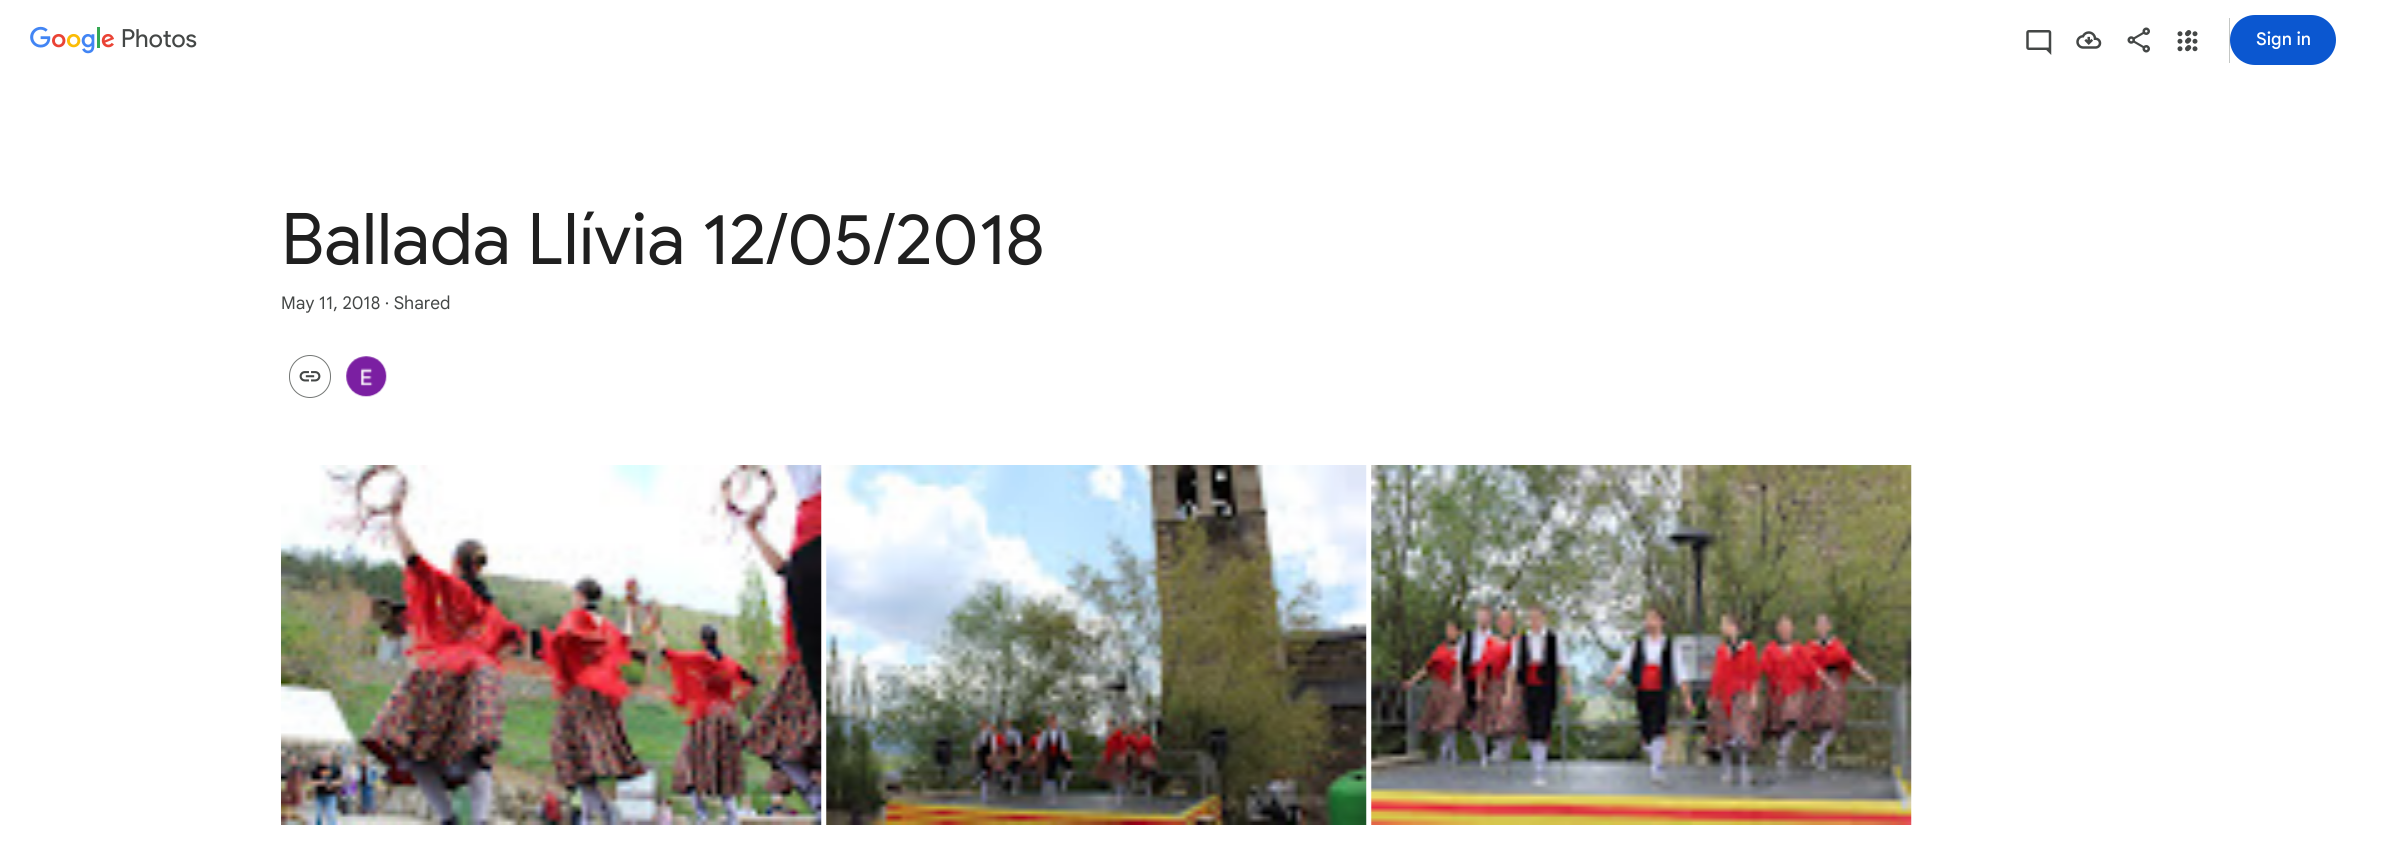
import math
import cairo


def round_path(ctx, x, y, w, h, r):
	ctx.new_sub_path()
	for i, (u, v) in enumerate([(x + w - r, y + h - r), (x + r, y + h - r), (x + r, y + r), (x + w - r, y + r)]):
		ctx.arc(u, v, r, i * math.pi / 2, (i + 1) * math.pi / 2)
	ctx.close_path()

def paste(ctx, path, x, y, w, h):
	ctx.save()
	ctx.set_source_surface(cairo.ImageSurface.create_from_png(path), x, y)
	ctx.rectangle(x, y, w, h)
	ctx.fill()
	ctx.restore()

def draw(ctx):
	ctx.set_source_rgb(1, 1, 1)
	ctx.paint()
	paste(ctx, 'media/1.png', 30, 26, 84, 28)
	ctx.select_font_face('Product Sans')
	ctx.set_font_size(25)
	ctx.set_source_rgb(0.267, 0.278, 0.275)
	ctx.move_to(121, 47)
	ctx.show_text('Photos')
	paste(ctx, 'media/2.png', 2026, 30, 26, 25)
	paste(ctx, 'media/3.png', 2076, 31, 26, 18)
	paste(ctx, 'media/4.png', 2127, 27, 23, 26)
	paste(ctx, 'media/5.png', 2186, 30, 6, 20)
	ctx.set_source_rgb(0.769, 0.78, 0.773)
	ctx.rectangle(2229, 18, 1, 45)
	ctx.fill()
	ctx.select_font_face('Google Sans')
	ctx.set_font_size(71.25)
	ctx.set_source_rgb(0.122, 0.122, 0.122)
	ctx.move_to(281, 264)
	ctx.show_text('Ballada Llívia 12/05/2018')
	ctx.select_font_face('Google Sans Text')
	ctx.set_font_size(17.5)
	ctx.set_source_rgb(0.267, 0.278, 0.275)
	ctx.move_to(281, 309)
	ctx.show_text('May 11, 2018 · Shared')
	round_path(ctx, 289.5, 355.5, 41, 42, 20.5)
	ctx.set_source_rgb(0.455, 0.467, 0.459)
	ctx.set_line_width(1)
	ctx.stroke()
	paste(ctx, 'media/6.png', 299, 371, 22, 11)
	paste(ctx, 'media/7.png', 346, 356, 41, 41)
	paste(ctx, 'media/8.png', 281, 465, 541, 360)
	paste(ctx, 'media/9.png', 826, 465, 541, 360)
	paste(ctx, 'media/10.png', 1371, 465, 541, 360)
	paste(ctx, 'media/11.png', 2177, 31, 21, 21)
	ctx.set_source_rgb(0.043, 0.341, 0.816)
	round_path(ctx, 2230, 15, 106, 50, 25)
	ctx.fill()
	ctx.select_font_face('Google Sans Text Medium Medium')
	ctx.set_source_rgb(1, 1, 1)
	ctx.move_to(2256, 45)
	ctx.show_text('Sign in')


surface = cairo.ImageSurface(cairo.FORMAT_RGB24, 2381, 842)
ctx = cairo.Context(surface)
options = cairo.FontOptions()
options.set_hint_metrics(cairo.HINT_METRICS_OFF)
options.set_hint_style(cairo.HINT_STYLE_NONE)
ctx.set_font_options(options)
ctx.set_miter_limit(4)
draw(ctx)
surface.write_to_png('image.png')
